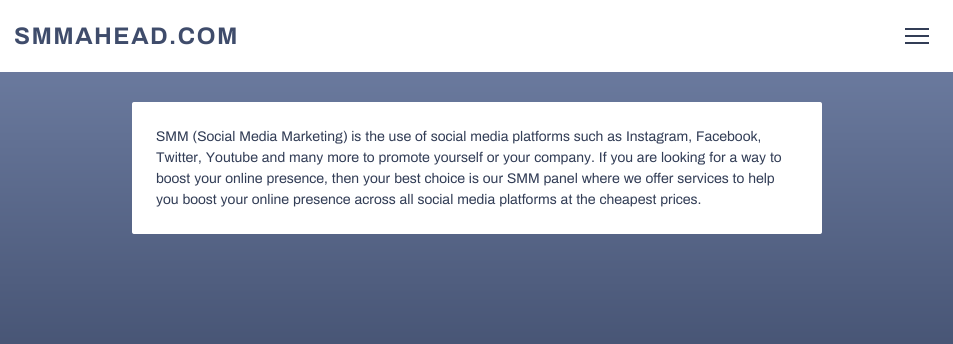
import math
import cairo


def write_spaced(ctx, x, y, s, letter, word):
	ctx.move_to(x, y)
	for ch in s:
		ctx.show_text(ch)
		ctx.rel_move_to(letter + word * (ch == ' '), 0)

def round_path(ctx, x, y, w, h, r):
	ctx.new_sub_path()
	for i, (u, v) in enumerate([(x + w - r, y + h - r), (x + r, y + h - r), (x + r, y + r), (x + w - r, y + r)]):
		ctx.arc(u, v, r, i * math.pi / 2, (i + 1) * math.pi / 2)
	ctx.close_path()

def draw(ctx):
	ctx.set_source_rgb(1, 1, 1)
	ctx.paint()
	gradient = cairo.LinearGradient(477, 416, 477, 0)
	gradient.add_color_stop_rgba(0, 0.247, 0.298, 0.42, 1)
	gradient.add_color_stop_rgba(1, 0.451, 0.514, 0.659, 1)
	ctx.set_source(gradient)
	ctx.rectangle(0, 72, 953, 272)
	ctx.fill()
	ctx.select_font_face('Archivo', cairo.FONT_SLANT_NORMAL, cairo.FONT_WEIGHT_BOLD)
	ctx.set_font_size(24)
	ctx.set_source_rgb(0.247, 0.298, 0.42)
	write_spaced(ctx, 14, 44, 'SMMAHEAD.COM', 1.75, 0)
	ctx.set_source_rgb(0.196, 0.239, 0.337)
	ctx.rectangle(905, 35, 24, 2)
	ctx.rectangle(905, 28, 24, 2)
	ctx.rectangle(905, 42, 24, 2)
	ctx.fill()
	ctx.set_source_rgb(1, 1, 1)
	round_path(ctx, 132, 102, 690, 132, 2)
	ctx.fill()
	ctx.select_font_face('Archivo')
	ctx.set_font_size(14)
	ctx.set_source_rgb(0.196, 0.239, 0.337)
	for x, y, s in [
		(156, 141, 'SMM (Social Media Marketing) is the use of social media platforms such as Instagram, Facebook,'),
		(156, 162, 'Twitter, Youtube and many more to promote yourself or your company. If you are looking for a way to'),
		(156, 183, 'boost your online presence, then your best choice is our SMM panel where we offer services to help'),
		(156, 204, 'you boost your online presence across all social media platforms at the cheapest prices.'),
	]:
		ctx.move_to(x, y)
		ctx.show_text(s)


surface = cairo.ImageSurface(cairo.FORMAT_RGB24, 953, 344)
ctx = cairo.Context(surface)
options = cairo.FontOptions()
options.set_hint_metrics(cairo.HINT_METRICS_OFF)
options.set_hint_style(cairo.HINT_STYLE_NONE)
ctx.set_font_options(options)
ctx.set_miter_limit(4)
draw(ctx)
surface.write_to_png('image.png')
